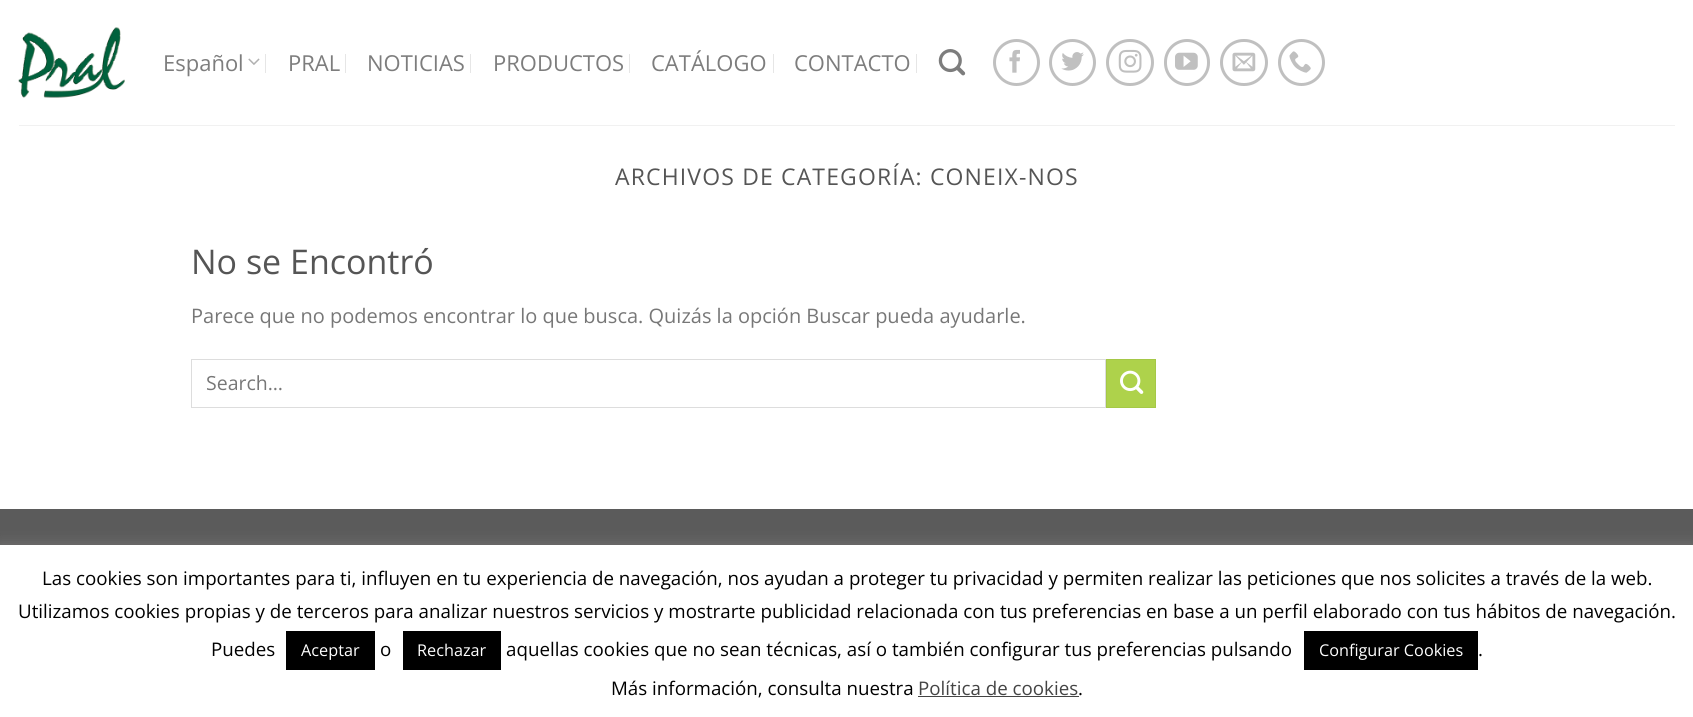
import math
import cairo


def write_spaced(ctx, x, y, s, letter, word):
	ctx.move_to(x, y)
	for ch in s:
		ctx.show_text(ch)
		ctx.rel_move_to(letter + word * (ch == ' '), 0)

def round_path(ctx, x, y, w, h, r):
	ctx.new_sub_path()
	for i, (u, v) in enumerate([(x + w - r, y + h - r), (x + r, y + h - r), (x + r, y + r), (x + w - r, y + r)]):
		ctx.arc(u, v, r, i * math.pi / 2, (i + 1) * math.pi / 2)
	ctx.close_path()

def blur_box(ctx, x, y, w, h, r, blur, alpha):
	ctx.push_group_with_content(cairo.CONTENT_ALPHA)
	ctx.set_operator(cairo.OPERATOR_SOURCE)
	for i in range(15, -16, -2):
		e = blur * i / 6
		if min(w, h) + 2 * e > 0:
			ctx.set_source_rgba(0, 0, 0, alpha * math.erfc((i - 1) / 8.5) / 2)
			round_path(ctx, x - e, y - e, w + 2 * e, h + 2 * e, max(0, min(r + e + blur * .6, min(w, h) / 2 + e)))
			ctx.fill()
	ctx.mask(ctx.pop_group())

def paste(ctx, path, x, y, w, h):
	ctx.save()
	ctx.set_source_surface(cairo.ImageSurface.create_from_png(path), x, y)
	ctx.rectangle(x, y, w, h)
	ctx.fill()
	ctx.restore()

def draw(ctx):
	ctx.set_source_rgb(1, 1, 1)
	ctx.paint()
	paste(ctx, 'media/1.png', 18, 27, 107, 71)
	ctx.select_font_face('Open Sans')
	ctx.set_font_size(22)
	ctx.set_source_rgb(0.49, 0.49, 0.49)
	ctx.move_to(163, 71)
	ctx.show_text('Español')
	paste(ctx, 'media/2.png', 248, 58, 12, 7)
	ctx.set_source_rgb(0.902, 0.902, 0.902)
	ctx.rectangle(265, 54, 1, 19)
	ctx.fill()
	ctx.set_source_rgb(0.49, 0.49, 0.49)
	ctx.move_to(288, 71)
	ctx.show_text('PRAL')
	ctx.set_source_rgb(0.902, 0.902, 0.902)
	ctx.rectangle(345, 54, 1, 19)
	ctx.fill()
	ctx.set_source_rgb(0.49, 0.49, 0.49)
	ctx.move_to(367, 71)
	ctx.show_text('NOTICIAS')
	ctx.set_source_rgb(0.902, 0.902, 0.902)
	ctx.rectangle(470, 54, 1, 19)
	ctx.fill()
	ctx.set_source_rgb(0.49, 0.49, 0.49)
	ctx.move_to(493, 71)
	ctx.show_text('PRODUCTOS')
	ctx.set_source_rgb(0.902, 0.902, 0.902)
	ctx.rectangle(629, 54, 1, 19)
	ctx.fill()
	ctx.set_source_rgb(0.49, 0.49, 0.49)
	ctx.move_to(651, 71)
	ctx.show_text('CATÁLOGO')
	ctx.set_source_rgb(0.902, 0.902, 0.902)
	ctx.rectangle(773, 54, 1, 19)
	ctx.fill()
	ctx.set_source_rgb(0.49, 0.49, 0.49)
	ctx.move_to(794, 71)
	ctx.show_text('CONTACTO')
	ctx.set_source_rgb(0.902, 0.902, 0.902)
	ctx.rectangle(916, 54, 1, 19)
	ctx.fill()
	paste(ctx, 'media/3.png', 938, 49, 28, 27)
	ctx.arc(1016.5, 62.5, 22, 0, 2 * math.pi)
	ctx.set_source_rgb(0.753, 0.753, 0.753)
	ctx.set_line_width(3)
	ctx.stroke()
	paste(ctx, 'media/4.png', 1009, 49, 11, 24)
	ctx.arc(1072.5, 62.5, 22, 0, 2 * math.pi)
	ctx.stroke()
	paste(ctx, 'media/5.png', 1061, 52, 23, 19)
	round_path(ctx, 1107.5, 40.5, 45, 44, 22)
	ctx.stroke()
	paste(ctx, 'media/6.png', 1118, 49, 24, 24)
	round_path(ctx, 1165.5, 40.5, 43, 44, 21.5)
	ctx.stroke()
	paste(ctx, 'media/7.png', 1175, 52, 23, 18)
	round_path(ctx, 1221.5, 40.5, 45, 44, 22)
	ctx.stroke()
	paste(ctx, 'media/8.png', 1232, 52, 24, 20)
	ctx.arc(1301.5, 62.5, 22, 0, 2 * math.pi)
	ctx.stroke()
	paste(ctx, 'media/9.png', 1289, 51, 22, 22)
	ctx.set_source_rgb(0.945, 0.945, 0.945)
	ctx.rectangle(19, 125, 1656, 1)
	ctx.fill()
	ctx.set_font_size(23)
	ctx.set_source_rgb(0.333, 0.333, 0.333)
	write_spaced(ctx, 615, 185, 'ARCHIVOS DE CATEGORÍA: CONEIX-NOS', 1.15, 0)
	ctx.set_font_size(34)
	ctx.move_to(191, 274)
	ctx.show_text('No se Encontró')
	ctx.set_font_size(20)
	ctx.set_source_rgb(0.467, 0.467, 0.467)
	ctx.move_to(191, 323)
	ctx.show_text('Parece que no podemos encontrar lo que busca. Quizás la opción Buscar pueda ayudarle.')
	ctx.rectangle(191.5, 359.5, 914, 48)
	ctx.set_source_rgb(0.867, 0.867, 0.867)
	ctx.set_line_width(1)
	ctx.stroke()
	ctx.set_font_size(19.5)
	ctx.set_source_rgb(0.467, 0.467, 0.467)
	ctx.move_to(206, 390)
	ctx.show_text('Search…')
	ctx.set_source_rgb(0.682, 0.824, 0.294)
	ctx.rectangle(1106.5, 359.5, 49, 48)
	ctx.fill_preserve()
	ctx.set_source_rgb(0.647, 0.784, 0.278)
	ctx.stroke()
	paste(ctx, 'media/10.png', 1120, 370, 24, 24)
	ctx.set_source_rgb(0.357, 0.357, 0.357)
	ctx.rectangle(0, 509, 1693, 36)
	ctx.fill()
	ctx.set_source_rgb(0.675, 0.671, 0.671)
	blur_box(ctx, 0, 544, 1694, 172, 0, 6, 0.3)
	ctx.set_source_rgb(1, 1, 1)
	ctx.rectangle(0, 545, 1693, 172)
	ctx.fill()
	ctx.set_font_size(18.75)
	ctx.set_source_rgb(0, 0, 0)
	for x, y, s in [
		(42, 585, 'Las cookies son importantes para ti, influyen en tu experiencia de navegación, nos ayudan a proteger tu privacidad y permiten realizar las peticiones que nos solicites a través de la web.'),
		(18, 618, 'Utilizamos cookies propias y de terceros para analizar nuestros servicios y mostrarte publicidad relacionada con tus preferencias en base a un perfil elaborado con tus hábitos de navegación.'),
		(211, 656, 'Puedes'),
	]:
		ctx.move_to(x, y)
		ctx.show_text(s)
	ctx.rectangle(286, 631, 89, 39)
	ctx.fill()
	ctx.set_font_size(16.25)
	ctx.set_source_rgb(1, 1, 1)
	ctx.move_to(301, 656)
	ctx.show_text('Aceptar')
	ctx.set_font_size(18.75)
	ctx.set_source_rgb(0, 0, 0)
	ctx.move_to(380, 656)
	ctx.show_text('o')
	ctx.rectangle(403, 631, 98, 39)
	ctx.fill()
	ctx.set_font_size(16.25)
	ctx.set_source_rgb(1, 1, 1)
	ctx.move_to(417, 656)
	ctx.show_text('Rechazar')
	ctx.set_font_size(18.75)
	ctx.set_source_rgb(0, 0, 0)
	ctx.move_to(506, 656)
	ctx.show_text('aquellas cookies que no sean técnicas, así o también configurar tus preferencias pulsando')
	ctx.rectangle(1304, 631, 174, 39)
	ctx.fill()
	ctx.set_font_size(16.25)
	ctx.set_source_rgb(1, 1, 1)
	ctx.move_to(1319, 656)
	ctx.show_text('Configurar Cookies')
	ctx.set_font_size(18.75)
	ctx.set_source_rgb(0, 0, 0)
	ctx.move_to(1478, 656)
	ctx.show_text('.')
	ctx.move_to(611, 695)
	ctx.show_text('Más información, consulta nuestra')
	ctx.set_source_rgb(0.267, 0.267, 0.267)
	ctx.move_to(918, 695)
	ctx.show_text('Política de cookies')
	ctx.rectangle(918, 696, 161, 1)
	ctx.fill()
	ctx.set_source_rgb(0, 0, 0)
	ctx.move_to(1078, 695)
	ctx.show_text('.')


surface = cairo.ImageSurface(cairo.FORMAT_RGB24, 1693, 717)
ctx = cairo.Context(surface)
options = cairo.FontOptions()
options.set_hint_metrics(cairo.HINT_METRICS_OFF)
options.set_hint_style(cairo.HINT_STYLE_NONE)
ctx.set_font_options(options)
ctx.set_miter_limit(4)
draw(ctx)
surface.write_to_png('image.png')
